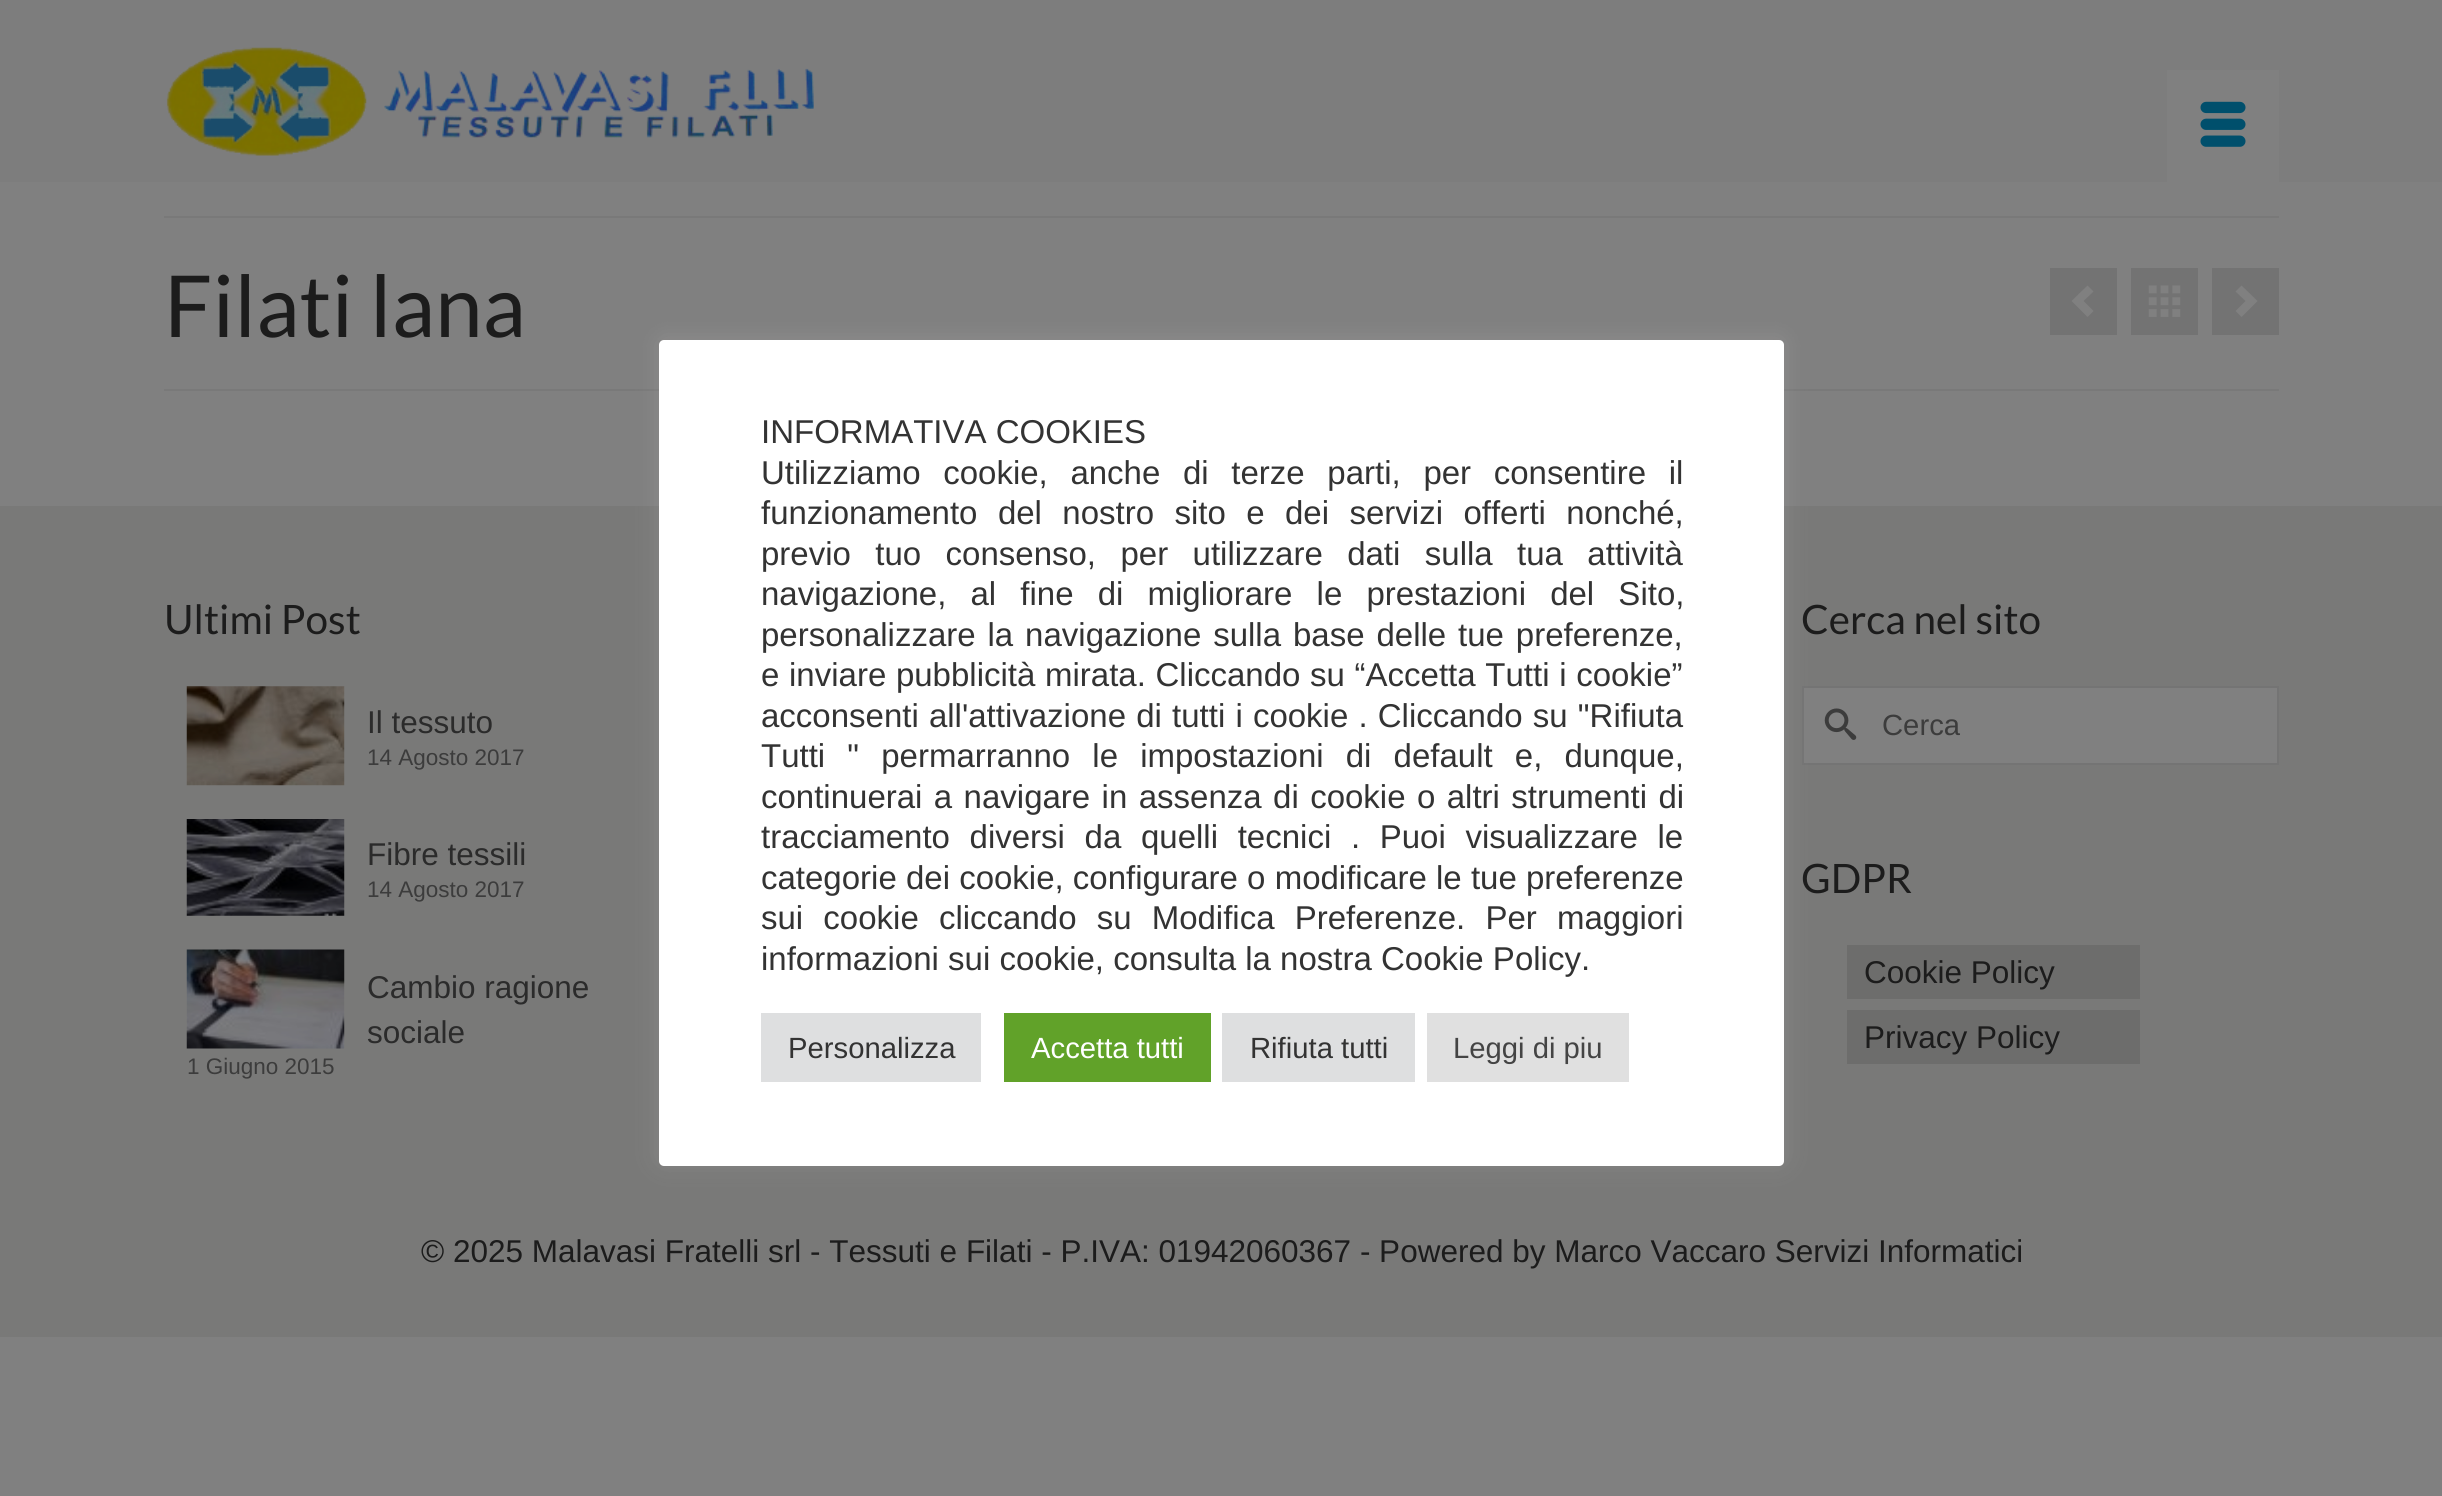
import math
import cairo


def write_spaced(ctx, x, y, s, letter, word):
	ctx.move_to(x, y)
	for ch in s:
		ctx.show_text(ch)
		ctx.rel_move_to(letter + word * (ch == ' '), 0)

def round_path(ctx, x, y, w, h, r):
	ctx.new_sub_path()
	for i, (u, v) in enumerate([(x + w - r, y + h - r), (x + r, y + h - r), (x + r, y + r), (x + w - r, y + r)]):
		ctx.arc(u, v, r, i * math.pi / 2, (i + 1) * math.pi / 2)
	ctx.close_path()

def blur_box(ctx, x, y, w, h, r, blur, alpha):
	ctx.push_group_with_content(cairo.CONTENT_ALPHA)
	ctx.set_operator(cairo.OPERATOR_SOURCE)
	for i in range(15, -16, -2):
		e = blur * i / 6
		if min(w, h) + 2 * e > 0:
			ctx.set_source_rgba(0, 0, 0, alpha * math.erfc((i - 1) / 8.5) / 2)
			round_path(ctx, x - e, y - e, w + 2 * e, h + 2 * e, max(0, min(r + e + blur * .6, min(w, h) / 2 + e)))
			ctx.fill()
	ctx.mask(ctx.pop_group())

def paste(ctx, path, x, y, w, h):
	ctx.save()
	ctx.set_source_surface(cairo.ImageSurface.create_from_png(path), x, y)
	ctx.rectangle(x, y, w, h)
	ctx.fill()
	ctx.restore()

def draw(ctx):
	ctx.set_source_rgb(0.502, 0.502, 0.502)
	ctx.paint()
	ctx.set_source_rgb(0.49, 0.49, 0.49)
	ctx.rectangle(0, 0, 2442, 182)
	ctx.fill()
	paste(ctx, 'media/1.png', 166, 47, 648, 109)
	ctx.set_source_rgb(0.502, 0.502, 0.502)
	ctx.rectangle(2167, 70, 112, 112)
	ctx.fill()
	paste(ctx, 'media/2.png', 2200, 101, 46, 46)
	ctx.set_source_rgb(0.475, 0.475, 0.475)
	ctx.rectangle(164, 216, 2115, 2)
	ctx.fill()
	ctx.rectangle(164, 389, 2115, 2)
	ctx.fill()
	ctx.select_font_face('Lato')
	ctx.set_font_size(85.5)
	ctx.set_source_rgb(0.11, 0.11, 0.11)
	ctx.move_to(164, 337)
	ctx.show_text('Filati lana')
	ctx.set_source_rgb(0.451, 0.451, 0.451)
	ctx.rectangle(2050, 268, 67, 67)
	ctx.rectangle(2131, 268, 67, 67)
	ctx.rectangle(2212, 268, 67, 67)
	ctx.fill()
	ctx.set_source_rgb(0.502, 0.502, 0.502)
	ctx.new_path()
	ctx.move_to(2087.5, 317)
	ctx.line_to(2093.5, 311)
	ctx.line_to(2083.5, 301)
	ctx.line_to(2093.5, 291.5)
	ctx.line_to(2087.5, 285.5)
	ctx.line_to(2071.5, 301)
	ctx.close_path()
	ctx.fill()
	paste(ctx, 'media/3.png', 2148, 285, 33, 32)
	ctx.new_path()
	ctx.move_to(2241.5, 285.5)
	ctx.line_to(2235.5, 291.5)
	ctx.line_to(2245.5, 301)
	ctx.line_to(2235.5, 311)
	ctx.line_to(2241.5, 317)
	ctx.line_to(2257.5, 301)
	ctx.close_path()
	ctx.fill()
	ctx.set_source_rgb(0.475, 0.475, 0.471)
	ctx.rectangle(0, 506, 2442, 831)
	ctx.fill()
	ctx.set_font_size(40.5)
	ctx.set_source_rgb(0.11, 0.11, 0.11)
	ctx.move_to(164, 634)
	ctx.show_text('Ultimi Post')
	paste(ctx, 'media/4.png', 186, 686, 159, 100)
	ctx.select_font_face('Liberation Sans')
	ctx.set_font_size(31.5)
	ctx.set_source_rgb(0.169, 0.169, 0.169)
	ctx.move_to(367, 733)
	ctx.show_text('Il tessuto')
	ctx.set_font_size(22.5)
	ctx.set_source_rgb(0.235, 0.235, 0.235)
	ctx.move_to(367, 765)
	ctx.show_text('14 Agosto 2017')
	paste(ctx, 'media/5.png', 186, 819, 159, 97)
	ctx.set_font_size(31.5)
	ctx.set_source_rgb(0.169, 0.169, 0.169)
	ctx.move_to(367, 865)
	ctx.show_text('Fibre tessili')
	ctx.set_font_size(22.5)
	ctx.set_source_rgb(0.235, 0.235, 0.235)
	ctx.move_to(367, 897)
	ctx.show_text('14 Agosto 2017')
	paste(ctx, 'media/6.png', 186, 949, 159, 100)
	ctx.set_font_size(31.5)
	ctx.set_source_rgb(0.169, 0.169, 0.169)
	ctx.move_to(367, 998)
	ctx.show_text('Cambio ragione')
	ctx.move_to(367, 1043)
	ctx.show_text('sociale')
	ctx.set_font_size(22.5)
	ctx.set_source_rgb(0.235, 0.235, 0.235)
	ctx.move_to(187, 1074)
	ctx.show_text('1 Giugno 2015')
	ctx.select_font_face('Lato')
	ctx.set_font_size(40.5)
	ctx.set_source_rgb(0.11, 0.11, 0.11)
	ctx.move_to(1801, 634)
	ctx.show_text('Cerca nel sito')
	ctx.set_source_rgb(0.502, 0.502, 0.502)
	ctx.rectangle(1803, 687, 475, 77)
	ctx.fill_preserve()
	ctx.set_source_rgb(0.455, 0.455, 0.455)
	ctx.stroke()
	paste(ctx, 'media/7.png', 1824, 708, 33, 32)
	ctx.select_font_face('Liberation Sans')
	ctx.set_font_size(29.25)
	ctx.set_source_rgb(0.235, 0.235, 0.235)
	ctx.move_to(1882, 735)
	ctx.show_text('Cerca')
	ctx.select_font_face('Lato')
	ctx.set_font_size(40.5)
	ctx.set_source_rgb(0.11, 0.11, 0.11)
	ctx.move_to(1801, 893)
	ctx.show_text('GDPR')
	ctx.set_source_rgb(0.427, 0.427, 0.424)
	ctx.rectangle(1847, 945, 293, 54)
	ctx.fill()
	ctx.select_font_face('Liberation Sans')
	ctx.set_font_size(31.5)
	ctx.set_source_rgb(0.11, 0.11, 0.11)
	ctx.move_to(1864, 983)
	ctx.show_text('Cookie Policy')
	ctx.set_source_rgb(0.427, 0.427, 0.424)
	ctx.rectangle(1847, 1010, 293, 54)
	ctx.fill()
	ctx.set_source_rgb(0.11, 0.11, 0.11)
	ctx.move_to(1864, 1048)
	ctx.show_text('Privacy Policy')
	ctx.move_to(421, 1262)
	ctx.show_text('© 2025 Malavasi Fratelli srl - Tessuti e Filati - P.IVA: 01942060367 - Powered by Marco Vaccaro Servizi Informatici')
	ctx.set_source_rgb(0.675, 0.671, 0.671)
	blur_box(ctx, 659, 338, 1125, 825, 5, 11, 0.3)
	ctx.set_source_rgb(1, 1, 1)
	round_path(ctx, 659, 340, 1125, 826, 5)
	ctx.fill()
	ctx.set_font_size(33)
	ctx.set_source_rgb(0.2, 0.2, 0.2)
	ctx.move_to(761, 443)
	ctx.show_text('INFORMATIVA COOKIES')
	write_spaced(ctx, 761, 484, 'Utilizziamo cookie, anche di terze parti, per consentire il', 0, 13.5)
	write_spaced(ctx, 761, 524, 'funzionamento del nostro sito e dei servizi offerti nonché,', 0, 11.25)
	write_spaced(ctx, 761, 565, 'previo tuo consenso, per utilizzare dati sulla tua attività', 0, 15.25)
	write_spaced(ctx, 761, 605, 'navigazione, al fine di migliorare le prestazioni del Sito,', 0, 15)
	write_spaced(ctx, 761, 646, 'personalizzare la navigazione sulla base delle tue preferenze,', 0, 2.75)
	write_spaced(ctx, 761, 686, 'e inviare pubblicità mirata. Cliccando su “Accetta Tutti i cookie”', 0, 0.5)
	write_spaced(ctx, 761, 727, 'acconsenti all\'attivazione di tutti i cookie . Cliccando su "Rifiuta', 0, 1)
	write_spaced(ctx, 761, 767, 'Tutti " permarranno le impostazioni di default e, dunque,', 0, 13)
	write_spaced(ctx, 761, 808, 'continuerai a navigare in assenza di cookie o altri strumenti di', 0, 2.25)
	write_spaced(ctx, 761, 848, 'tracciamento diversi da quelli tecnici . Puoi visualizzare le', 0, 10.5)
	ctx.move_to(761, 889)
	ctx.show_text('categorie dei cookie, configurare o modificare le tue preferenze')
	write_spaced(ctx, 761, 929, 'sui cookie cliccando su Modifica Preferenze. Per maggiori', 0, 11)
	ctx.move_to(761, 970)
	ctx.show_text('informazioni sui cookie, consulta la nostra Cookie Policy.')
	ctx.set_source_rgb(0.871, 0.875, 0.878)
	ctx.rectangle(761, 1013, 220, 69)
	ctx.fill()
	ctx.set_font_size(29.25)
	ctx.set_source_rgb(0.2, 0.2, 0.2)
	ctx.move_to(788, 1058)
	ctx.show_text('Personalizza')
	ctx.set_source_rgb(0.38, 0.635, 0.161)
	ctx.rectangle(1004, 1013, 207, 69)
	ctx.fill()
	ctx.set_source_rgb(1, 1, 1)
	ctx.move_to(1031, 1058)
	ctx.show_text('Accetta tutti')
	ctx.set_source_rgb(0.871, 0.875, 0.878)
	ctx.rectangle(1222, 1013, 193, 69)
	ctx.fill()
	ctx.set_source_rgb(0.2, 0.2, 0.2)
	ctx.move_to(1250, 1058)
	ctx.show_text('Rifiuta tutti')
	ctx.set_source_rgb(0.878, 0.878, 0.878)
	ctx.rectangle(1427, 1013, 202, 69)
	ctx.fill()
	ctx.set_source_rgb(0.267, 0.267, 0.267)
	ctx.move_to(1453, 1058)
	ctx.show_text('Leggi di piu')


surface = cairo.ImageSurface(cairo.FORMAT_RGB24, 2442, 1496)
ctx = cairo.Context(surface)
options = cairo.FontOptions()
options.set_hint_metrics(cairo.HINT_METRICS_OFF)
options.set_hint_style(cairo.HINT_STYLE_NONE)
ctx.set_font_options(options)
ctx.set_miter_limit(4)
draw(ctx)
surface.write_to_png('image.png')
